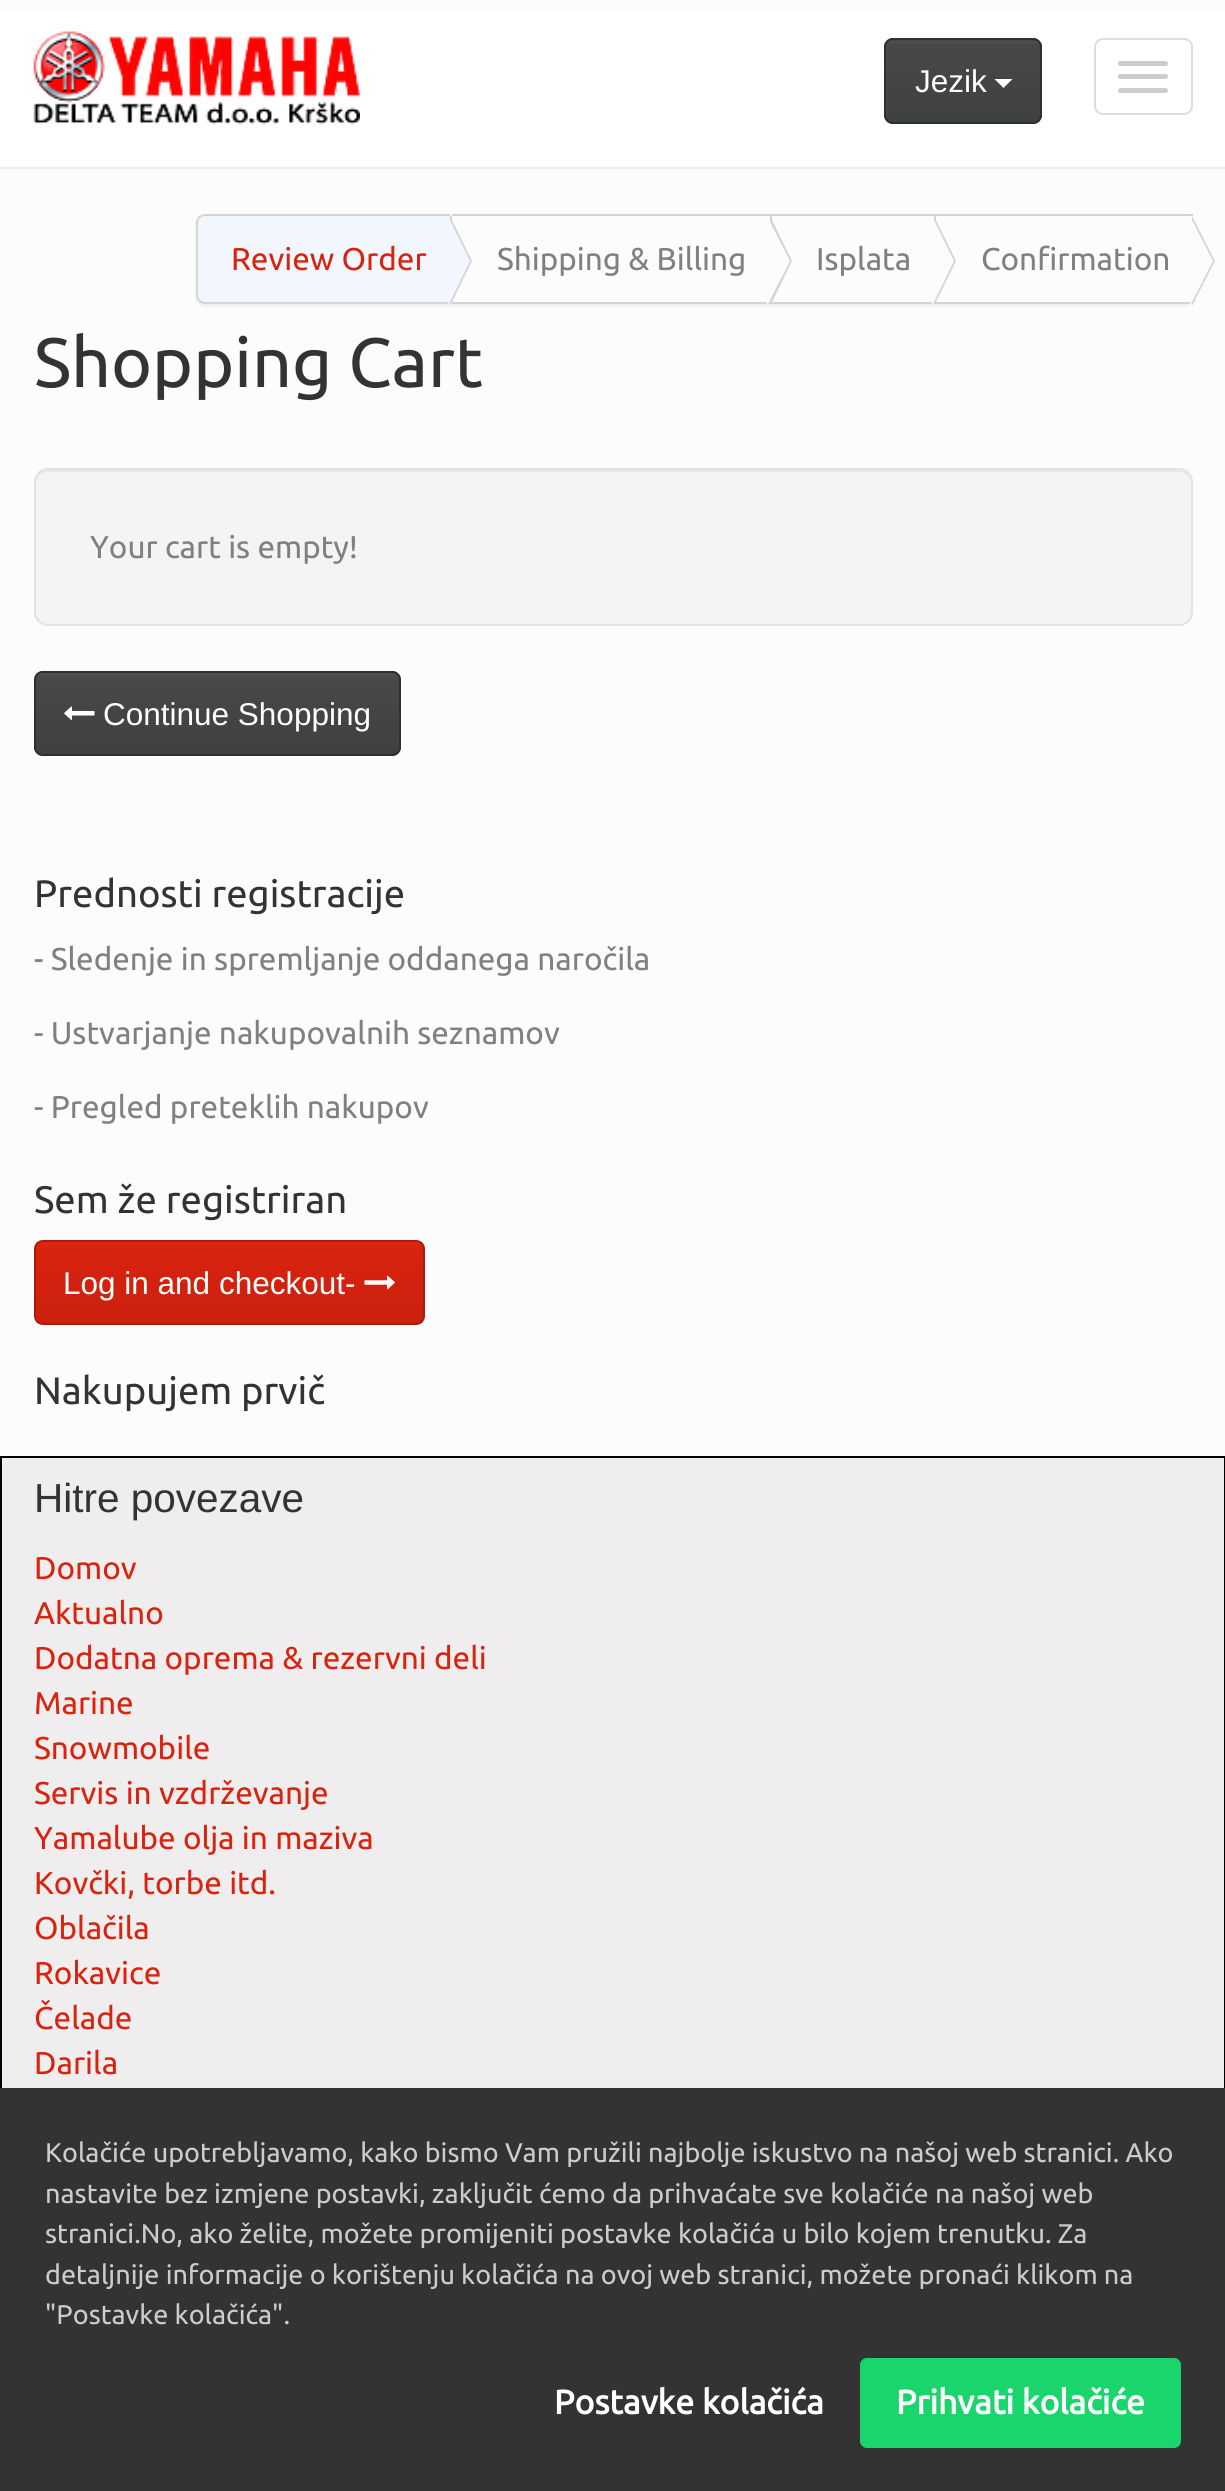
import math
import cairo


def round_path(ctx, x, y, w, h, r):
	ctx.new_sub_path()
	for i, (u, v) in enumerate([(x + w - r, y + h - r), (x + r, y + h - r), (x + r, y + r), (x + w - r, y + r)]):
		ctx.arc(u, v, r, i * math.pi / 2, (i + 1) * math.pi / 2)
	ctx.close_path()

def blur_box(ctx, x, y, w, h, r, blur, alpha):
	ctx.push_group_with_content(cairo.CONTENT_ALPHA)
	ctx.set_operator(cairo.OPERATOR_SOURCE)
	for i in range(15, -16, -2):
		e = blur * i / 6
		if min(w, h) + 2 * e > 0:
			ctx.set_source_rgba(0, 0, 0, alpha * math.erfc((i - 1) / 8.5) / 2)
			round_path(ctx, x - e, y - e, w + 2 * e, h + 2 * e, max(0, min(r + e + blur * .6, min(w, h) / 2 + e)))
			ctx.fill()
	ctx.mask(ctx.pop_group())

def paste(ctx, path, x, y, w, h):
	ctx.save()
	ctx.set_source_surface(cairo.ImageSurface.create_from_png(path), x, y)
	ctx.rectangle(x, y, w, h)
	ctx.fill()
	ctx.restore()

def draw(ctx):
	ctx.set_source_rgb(0.988, 0.988, 0.988)
	ctx.paint()
	ctx.set_source_rgb(1, 1, 1)
	ctx.rectangle(0, 11, 1225, 156)
	ctx.fill()
	ctx.set_source_rgb(0.933, 0.933, 0.933)
	ctx.rectangle(0, 167, 1225, 2)
	ctx.fill()
	paste(ctx, 'media/1.png', 33, 31, 327, 94)
	round_path(ctx, 1095, 39, 97, 75, 8)
	ctx.set_source_rgb(0.867, 0.867, 0.867)
	ctx.stroke()
	ctx.set_source_rgb(0.8, 0.8, 0.8)
	round_path(ctx, 1118, 61, 50, 5, 2.5)
	ctx.fill()
	round_path(ctx, 1118, 74, 50, 5, 2.5)
	ctx.fill()
	round_path(ctx, 1118, 88, 50, 5, 2.5)
	ctx.fill()
	ctx.set_source_rgb(0.278, 0.286, 0.286)
	round_path(ctx, 884, 38, 158, 86, 9)
	ctx.fill()
	ctx.save()
	round_path(ctx, 884, 38, 158, 86, 9)
	ctx.clip()
	gradient = cairo.LinearGradient(963, 40, 963, 122)
	gradient.add_color_stop_rgba(0, 0.31, 0.318, 0.318, 1)
	gradient.add_color_stop_rgba(0.06, 0.278, 0.286, 0.286, 1)
	gradient.add_color_stop_rgba(1, 0.247, 0.255, 0.255, 1)
	ctx.set_source(gradient)
	ctx.rectangle(887, 41, 153, 81)
	ctx.fill()
	ctx.restore()
	round_path(ctx, 885, 39, 156, 84, 8)
	ctx.set_source_rgb(0.18, 0.184, 0.184)
	ctx.stroke()
	ctx.select_font_face('Liberation Sans')
	ctx.set_font_size(31.5)
	ctx.set_source_rgb(1, 1, 1)
	ctx.move_to(915, 92)
	ctx.show_text('Jezik')
	ctx.new_path()
	ctx.move_to(994.5, 79)
	ctx.line_to(1012.5, 79)
	ctx.line_to(1003.5, 88)
	ctx.close_path()
	ctx.fill()
	ctx.save()
	ctx.set_fill_rule(cairo.FILL_RULE_EVEN_ODD)
	ctx.new_path()
	ctx.move_to(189, 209)
	ctx.line_to(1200, 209)
	ctx.line_to(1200, 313)
	ctx.line_to(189, 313)
	ctx.close_path()
	ctx.move_to(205, 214)
	ctx.line_to(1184, 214)
	ctx.curve_to(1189, 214, 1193, 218, 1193, 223)
	ctx.line_to(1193, 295)
	ctx.curve_to(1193, 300, 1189, 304, 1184, 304)
	ctx.line_to(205, 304)
	ctx.curve_to(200, 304, 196, 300, 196, 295)
	ctx.line_to(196, 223)
	ctx.curve_to(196, 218, 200, 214, 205, 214)
	ctx.close_path()
	ctx.clip()
	ctx.set_source_rgb(0, 0, 0)
	blur_box(ctx, 196, 216, 997, 90, 9, 2, 0.07)
	ctx.restore()
	ctx.set_source_rgb(0.945, 0.965, 0.988)
	ctx.new_path()
	ctx.move_to(205, 216)
	ctx.line_to(450, 216)
	ctx.line_to(450, 302)
	ctx.line_to(205, 302)
	ctx.curve_to(201, 302, 198, 299, 198, 295)
	ctx.line_to(198, 223)
	ctx.curve_to(198, 219, 201, 216, 205, 216)
	ctx.close_path()
	ctx.fill()
	ctx.set_source_rgb(0.831, 0.831, 0.831)
	ctx.set_fill_rule(cairo.FILL_RULE_EVEN_ODD)
	ctx.new_path()
	ctx.move_to(205, 214)
	ctx.line_to(450, 214)
	ctx.line_to(450, 304)
	ctx.line_to(205, 304)
	ctx.curve_to(200, 304, 196, 300, 196, 295)
	ctx.line_to(196, 223)
	ctx.curve_to(196, 218, 200, 214, 205, 214)
	ctx.close_path()
	ctx.move_to(205, 216)
	ctx.line_to(450, 216)
	ctx.line_to(450, 302)
	ctx.line_to(205, 302)
	ctx.curve_to(201, 302, 198, 298, 198, 295)
	ctx.line_to(198, 223)
	ctx.curve_to(198, 219, 201, 216, 205, 216)
	ctx.close_path()
	ctx.fill()
	ctx.select_font_face('Ubuntu')
	ctx.set_source_rgb(0.851, 0.137, 0.059)
	ctx.move_to(231, 270)
	ctx.show_text('Review Order')
	ctx.set_source_rgb(0.831, 0.831, 0.831)
	ctx.rectangle(450, 302, 743, 2)
	ctx.rectangle(450, 214, 743, 2)
	ctx.rectangle(450, 214, 2, 90)
	ctx.fill()
	ctx.set_fill_rule(cairo.FILL_RULE_WINDING)
	ctx.new_path()
	ctx.move_to(450, 306)
	ctx.line_to(450, 216)
	ctx.line_to(472, 261)
	ctx.close_path()
	ctx.fill()
	ctx.set_source_rgb(0.945, 0.965, 0.988)
	ctx.new_path()
	ctx.move_to(448, 306)
	ctx.line_to(448, 216)
	ctx.line_to(470, 261)
	ctx.close_path()
	ctx.fill()
	ctx.set_source_rgb(0.502, 0.502, 0.502)
	ctx.move_to(497, 270)
	ctx.show_text('Shipping & Billing')
	ctx.set_source_rgb(0.831, 0.831, 0.831)
	ctx.rectangle(770, 214, 2, 90)
	ctx.fill()
	ctx.new_path()
	ctx.move_to(770, 306)
	ctx.line_to(770, 216)
	ctx.line_to(792, 261)
	ctx.close_path()
	ctx.fill()
	ctx.set_source_rgb(0.984, 0.984, 0.984)
	ctx.new_path()
	ctx.move_to(767, 306)
	ctx.line_to(767, 216)
	ctx.line_to(790, 261)
	ctx.close_path()
	ctx.fill()
	ctx.set_source_rgb(0.502, 0.502, 0.502)
	ctx.move_to(816, 270)
	ctx.show_text('Isplata')
	ctx.set_source_rgb(0.831, 0.831, 0.831)
	ctx.rectangle(934, 214, 2, 90)
	ctx.fill()
	ctx.new_path()
	ctx.move_to(934, 306)
	ctx.line_to(934, 216)
	ctx.line_to(956, 261)
	ctx.close_path()
	ctx.fill()
	ctx.set_source_rgb(0.984, 0.984, 0.984)
	ctx.new_path()
	ctx.move_to(932, 306)
	ctx.line_to(932, 216)
	ctx.line_to(954, 261)
	ctx.close_path()
	ctx.fill()
	ctx.rectangle(1189, 219, 4, 83)
	ctx.fill()
	ctx.set_source_rgb(0.502, 0.502, 0.502)
	ctx.move_to(981, 270)
	ctx.show_text('Confirmation')
	ctx.set_source_rgb(0.831, 0.831, 0.831)
	ctx.new_path()
	ctx.move_to(1192, 306)
	ctx.line_to(1192, 216)
	ctx.line_to(1215, 261)
	ctx.close_path()
	ctx.fill()
	ctx.set_source_rgb(0.984, 0.984, 0.984)
	ctx.new_path()
	ctx.move_to(1190, 306)
	ctx.line_to(1190, 216)
	ctx.line_to(1213, 261)
	ctx.close_path()
	ctx.fill()
	ctx.set_font_size(69.75)
	ctx.set_source_rgb(0.2, 0.2, 0.2)
	ctx.move_to(34, 387)
	ctx.show_text('Shopping Cart')
	ctx.set_source_rgb(0.957, 0.957, 0.957)
	round_path(ctx, 34, 468, 1159, 158, 14)
	ctx.fill()
	ctx.set_source_rgb(0.91, 0.91, 0.91)
	ctx.new_path()
	ctx.move_to(47, 472)
	ctx.line_to(1179, 472)
	ctx.curve_to(1185, 472, 1190, 478, 1190, 484)
	ctx.line_to(1190, 481)
	ctx.curve_to(1190, 475, 1185, 470, 1179, 470)
	ctx.line_to(47, 470)
	ctx.curve_to(41, 470, 36, 475, 36, 481)
	ctx.line_to(36, 484)
	ctx.curve_to(36, 478, 41, 472, 47, 472)
	ctx.close_path()
	ctx.fill()
	round_path(ctx, 35, 469, 1157, 156, 13)
	ctx.set_source_rgb(0.89, 0.89, 0.89)
	ctx.stroke()
	ctx.set_font_size(31.5)
	ctx.set_source_rgb(0.502, 0.502, 0.502)
	ctx.move_to(90, 558)
	ctx.show_text('Your cart is empty!')
	ctx.set_source_rgb(0.278, 0.286, 0.286)
	round_path(ctx, 34, 671, 367, 85, 9)
	ctx.fill()
	ctx.save()
	round_path(ctx, 34, 671, 367, 85, 9)
	ctx.clip()
	gradient = cairo.LinearGradient(217, 673, 217, 754)
	gradient.add_color_stop_rgba(0, 0.31, 0.318, 0.318, 1)
	gradient.add_color_stop_rgba(0.06, 0.278, 0.286, 0.286, 1)
	gradient.add_color_stop_rgba(1, 0.247, 0.255, 0.255, 1)
	ctx.set_source(gradient)
	ctx.rectangle(36, 673, 362, 81)
	ctx.fill()
	ctx.restore()
	round_path(ctx, 35, 672, 365, 83, 8)
	ctx.set_source_rgb(0.18, 0.184, 0.184)
	ctx.stroke()
	paste(ctx, 'media/2.png', 64, 706, 31, 14)
	ctx.select_font_face('Liberation Sans')
	ctx.set_source_rgb(1, 1, 1)
	ctx.move_to(103, 725)
	ctx.show_text('Continue Shopping')
	ctx.select_font_face('Ubuntu')
	ctx.set_font_size(38.25)
	ctx.set_source_rgb(0.2, 0.2, 0.2)
	ctx.move_to(34, 907)
	ctx.show_text('Prednosti registracije')
	ctx.set_font_size(31.5)
	ctx.set_source_rgb(0.502, 0.502, 0.502)
	for x, y, s in [
		(34, 970, '- Sledenje in spremljanje oddanega naročila'),
		(34, 1044, '- Ustvarjanje nakupovalnih seznamov'),
		(34, 1118, '- Pregled preteklih nakupov'),
	]:
		ctx.move_to(x, y)
		ctx.show_text(s)
	ctx.set_font_size(38.25)
	ctx.set_source_rgb(0.2, 0.2, 0.2)
	ctx.move_to(34, 1213)
	ctx.show_text('Sem že registriran')
	ctx.save()
	round_path(ctx, 34, 1240, 391, 85, 9)
	ctx.clip()
	gradient = cairo.LinearGradient(230, 1242, 230, 1323)
	gradient.add_color_stop_rgba(0, 0.906, 0.145, 0.063, 1)
	gradient.add_color_stop_rgba(0.06, 0.851, 0.137, 0.059, 1)
	gradient.add_color_stop_rgba(1, 0.796, 0.129, 0.055, 1)
	ctx.set_source(gradient)
	ctx.rectangle(36, 1242, 387, 81)
	ctx.fill()
	ctx.restore()
	round_path(ctx, 35, 1241, 389, 83, 8)
	ctx.set_source_rgb(0.663, 0.106, 0.047)
	ctx.stroke()
	ctx.select_font_face('Liberation Sans')
	ctx.set_font_size(31.5)
	ctx.set_source_rgb(1, 1, 1)
	ctx.move_to(63, 1294)
	ctx.show_text('Log in and checkout-')
	paste(ctx, 'media/3.png', 364, 1275, 31, 15)
	ctx.select_font_face('Ubuntu')
	ctx.set_font_size(38.25)
	ctx.set_source_rgb(0.2, 0.2, 0.2)
	ctx.move_to(34, 1404)
	ctx.show_text('Nakupujem prvič')
	ctx.set_source_rgb(0.937, 0.929, 0.929)
	ctx.rectangle(2, 1458, 1222, 630)
	ctx.fill()
	ctx.rectangle(1, 1457, 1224, 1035)
	ctx.set_source_rgb(0, 0, 0)
	ctx.stroke()
	ctx.select_font_face('Liberation Sans')
	ctx.set_font_size(40.5)
	ctx.set_source_rgb(0.2, 0.2, 0.2)
	ctx.move_to(34, 1512)
	ctx.show_text('Hitre povezave')
	ctx.select_font_face('Ubuntu')
	ctx.set_font_size(31.5)
	ctx.set_source_rgb(0.851, 0.137, 0.059)
	for x, y, s in [
		(34, 1579, 'Domov'),
		(34, 1624, 'Aktualno'),
		(34, 1669, 'Dodatna oprema & rezervni deli'),
		(34, 1714, 'Marine'),
		(34, 1759, 'Snowmobile'),
		(34, 1804, 'Servis in vzdrževanje'),
		(34, 1849, 'Yamalube olja in maziva'),
		(34, 1894, 'Kovčki, torbe itd.'),
		(34, 1939, 'Oblačila'),
		(34, 1984, 'Rokavice'),
		(34, 2029, 'Čelade'),
		(34, 2074, 'Darila'),
	]:
		ctx.move_to(x, y)
		ctx.show_text(s)
	ctx.set_source_rgb(0.2, 0.2, 0.2)
	ctx.rectangle(0, 2088, 1225, 403)
	ctx.fill()
	ctx.set_font_size(27)
	ctx.set_source_rgb(0.8, 0.8, 0.8)
	for x, y, s in [
		(45, 2162, 'Kolačiće upotrebljavamo, kako bismo Vam pružili najbolje iskustvo na našoj web stranici. Ako'),
		(45, 2203, 'nastavite bez izmjene postavki, zaključit ćemo da prihvaćate sve kolačiće na našoj web'),
		(45, 2243, 'stranici.No, ako želite, možete promijeniti postavke kolačića u bilo kojem trenutku. Za'),
		(45, 2284, 'detaljnije informacije o korištenju kolačića na ovoj web stranici, možete pronaći klikom na'),
		(45, 2324, '"Postavke kolačića".'),
	]:
		ctx.move_to(x, y)
		ctx.show_text(s)
	ctx.select_font_face('Ubuntu', cairo.FONT_SLANT_NORMAL, cairo.FONT_WEIGHT_BOLD)
	ctx.set_font_size(33.75)
	ctx.set_source_rgb(1, 1, 1)
	ctx.move_to(554, 2414)
	ctx.show_text('Postavke kolačića')
	ctx.set_source_rgb(0.102, 0.835, 0.424)
	round_path(ctx, 860, 2358, 321, 90, 7)
	ctx.fill()
	ctx.set_source_rgb(1, 1, 1)
	ctx.move_to(896, 2414)
	ctx.show_text('Prihvati kolačiće')


surface = cairo.ImageSurface(cairo.FORMAT_RGB24, 1225, 2491)
ctx = cairo.Context(surface)
options = cairo.FontOptions()
options.set_hint_metrics(cairo.HINT_METRICS_OFF)
options.set_hint_style(cairo.HINT_STYLE_NONE)
ctx.set_font_options(options)
ctx.set_miter_limit(4)
draw(ctx)
surface.write_to_png('image.png')
